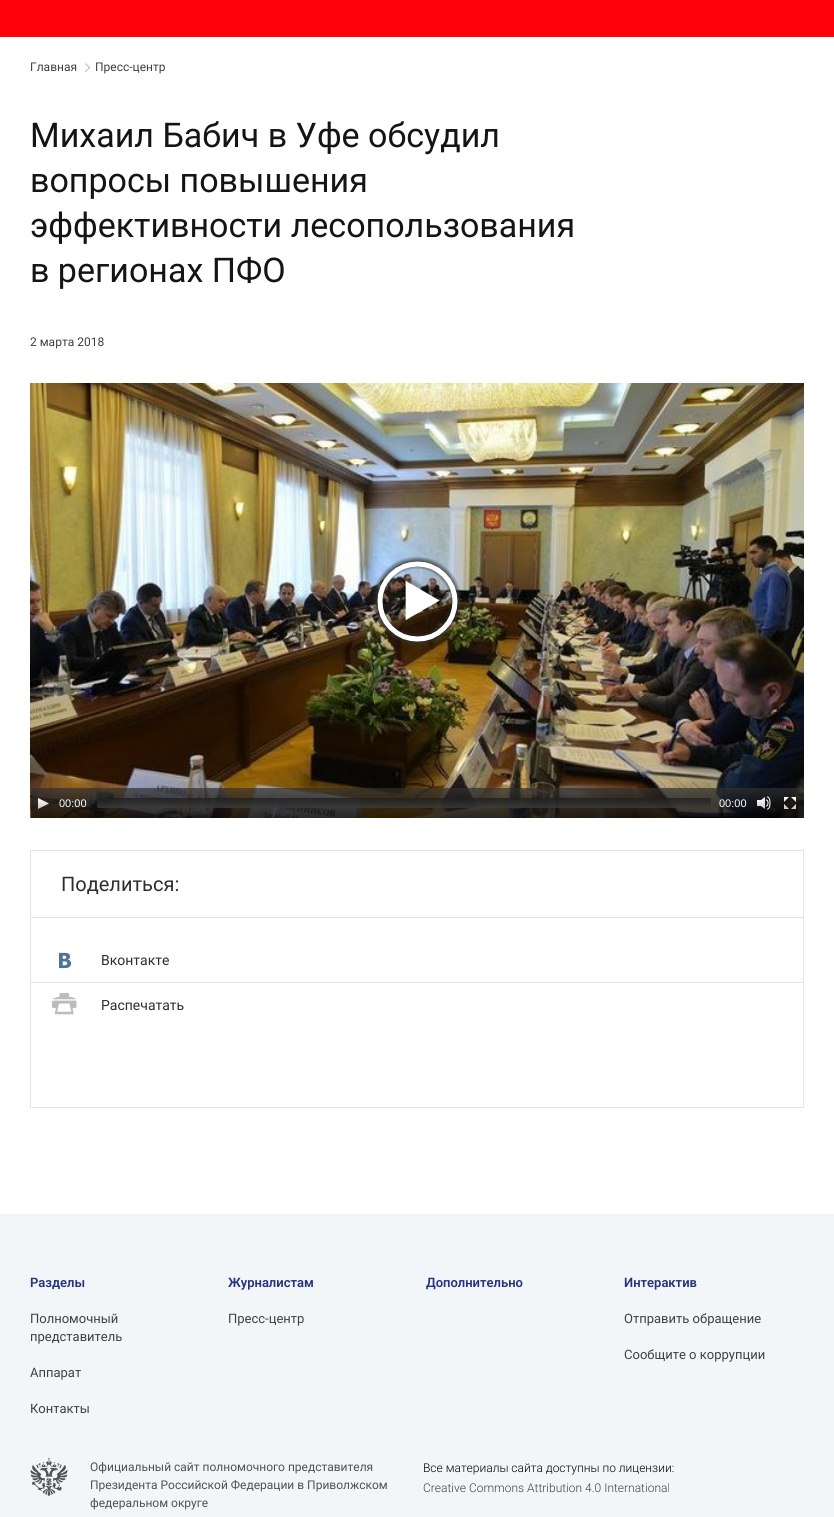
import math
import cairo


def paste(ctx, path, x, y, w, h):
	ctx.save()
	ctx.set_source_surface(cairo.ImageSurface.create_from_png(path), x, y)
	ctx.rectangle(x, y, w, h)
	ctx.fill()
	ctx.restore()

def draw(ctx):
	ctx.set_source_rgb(1, 1, 1)
	ctx.paint()
	ctx.set_source_rgb(1, 0.004, 0.043)
	ctx.rectangle(0, 0, 834, 37)
	ctx.fill()
	ctx.select_font_face('Roboto')
	ctx.set_font_size(12)
	ctx.set_source_rgb(0.235, 0.255, 0.255)
	ctx.move_to(30, 71)
	ctx.show_text('Главная')
	paste(ctx, 'media/1.png', 85, 63, 5, 9)
	ctx.move_to(95, 71)
	ctx.show_text('Пресс-центр')
	ctx.set_font_size(34)
	ctx.set_source_rgb(0.082, 0.082, 0.082)
	for x, y, s in [
		(30, 147, 'Михаил Бабич в Уфе обсудил'),
		(30, 192, 'вопросы повышения'),
		(30, 237, 'эффективности лесопользования'),
		(30, 282, 'в регионах ПФО'),
	]:
		ctx.move_to(x, y)
		ctx.show_text(s)
	ctx.set_font_size(12)
	ctx.set_source_rgb(0.235, 0.255, 0.255)
	ctx.move_to(30, 346)
	ctx.show_text('2 марта 2018')
	paste(ctx, 'media/2.png', 30, 383, 774, 435)
	paste(ctx, 'media/3.png', 31, 383, 767, 435)
	paste(ctx, 'media/4.png', 373, 556, 88, 90)
	paste(ctx, 'media/5.png', 38, 798, 11, 11)
	ctx.select_font_face('Liberation Sans')
	ctx.set_font_size(11)
	ctx.set_source_rgb(1, 1, 1)
	ctx.move_to(59, 807)
	ctx.show_text('00:00')
	ctx.move_to(719, 807)
	ctx.show_text('00:00')
	paste(ctx, 'media/6.png', 757, 796, 14, 14)
	paste(ctx, 'media/7.png', 784, 797, 12, 12)
	ctx.rectangle(30.5, 850.5, 773, 257)
	ctx.set_source_rgb(0.886, 0.898, 0.91)
	ctx.set_line_width(1)
	ctx.stroke()
	ctx.rectangle(31, 917, 772, 1)
	ctx.fill()
	ctx.select_font_face('Roboto')
	ctx.set_font_size(20)
	ctx.set_source_rgb(0.18, 0.18, 0.18)
	ctx.move_to(61, 891)
	ctx.show_text('Поделиться:')
	paste(ctx, 'media/8.png', 59, 952, 12, 17)
	ctx.set_font_size(14)
	ctx.move_to(101, 965)
	ctx.show_text('Вконтакте')
	ctx.set_source_rgb(0.886, 0.898, 0.91)
	ctx.rectangle(31, 982, 772, 1)
	ctx.fill()
	paste(ctx, 'media/9.png', 52, 993, 25, 22)
	ctx.set_source_rgb(0.18, 0.18, 0.18)
	ctx.move_to(101, 1010)
	ctx.show_text('Распечатать')
	ctx.set_source_rgb(0.949, 0.961, 0.973)
	ctx.rectangle(0, 1214, 834, 303)
	ctx.fill()
	ctx.select_font_face('Roboto SemiBold')
	ctx.set_font_size(13)
	ctx.set_source_rgb(0.149, 0.196, 0.498)
	ctx.move_to(30, 1287)
	ctx.show_text('Разделы')
	ctx.select_font_face('Roboto')
	ctx.set_source_rgb(0.235, 0.255, 0.255)
	for x, y, s in [
		(30, 1323, 'Полномочный'),
		(30, 1341, 'представитель'),
		(30, 1377, 'Аппарат'),
		(30, 1413, 'Контакты'),
	]:
		ctx.move_to(x, y)
		ctx.show_text(s)
	ctx.select_font_face('Roboto SemiBold')
	ctx.set_source_rgb(0.149, 0.196, 0.498)
	ctx.move_to(228, 1287)
	ctx.show_text('Журналистам')
	ctx.select_font_face('Roboto')
	ctx.set_source_rgb(0.235, 0.255, 0.255)
	ctx.move_to(228, 1323)
	ctx.show_text('Пресс-центр')
	ctx.select_font_face('Roboto SemiBold')
	ctx.set_source_rgb(0.149, 0.196, 0.498)
	ctx.move_to(426, 1287)
	ctx.show_text('Дополнительно')
	ctx.move_to(624, 1287)
	ctx.show_text('Интерактив')
	ctx.select_font_face('Roboto')
	ctx.set_source_rgb(0.235, 0.255, 0.255)
	ctx.move_to(624, 1323)
	ctx.show_text('Отправить обращение')
	ctx.move_to(624, 1359)
	ctx.show_text('Сообщите о коррупции')
	paste(ctx, 'media/10.png', 30, 1458, 38, 38)
	ctx.set_font_size(12)
	ctx.set_source_rgb(0.314, 0.318, 0.322)
	for x, y, s in [
		(90, 1471, 'Официальный сайт полномочного представителя'),
		(90, 1489, 'Президента Российской Федерации в Приволжском'),
		(90, 1507, 'федеральном округе'),
	]:
		ctx.move_to(x, y)
		ctx.show_text(s)
	ctx.select_font_face('Roboto Light')
	ctx.set_source_rgb(0, 0, 0)
	ctx.move_to(423, 1472)
	ctx.show_text('Все материалы сайта доступны по лицензии:')
	ctx.set_source_rgb(0.235, 0.255, 0.255)
	ctx.move_to(423, 1492)
	ctx.show_text('Creative Commons Attribution 4.0 International')


surface = cairo.ImageSurface(cairo.FORMAT_RGB24, 834, 1517)
ctx = cairo.Context(surface)
options = cairo.FontOptions()
options.set_hint_metrics(cairo.HINT_METRICS_OFF)
options.set_hint_style(cairo.HINT_STYLE_NONE)
ctx.set_font_options(options)
ctx.set_miter_limit(4)
draw(ctx)
surface.write_to_png('image.png')
